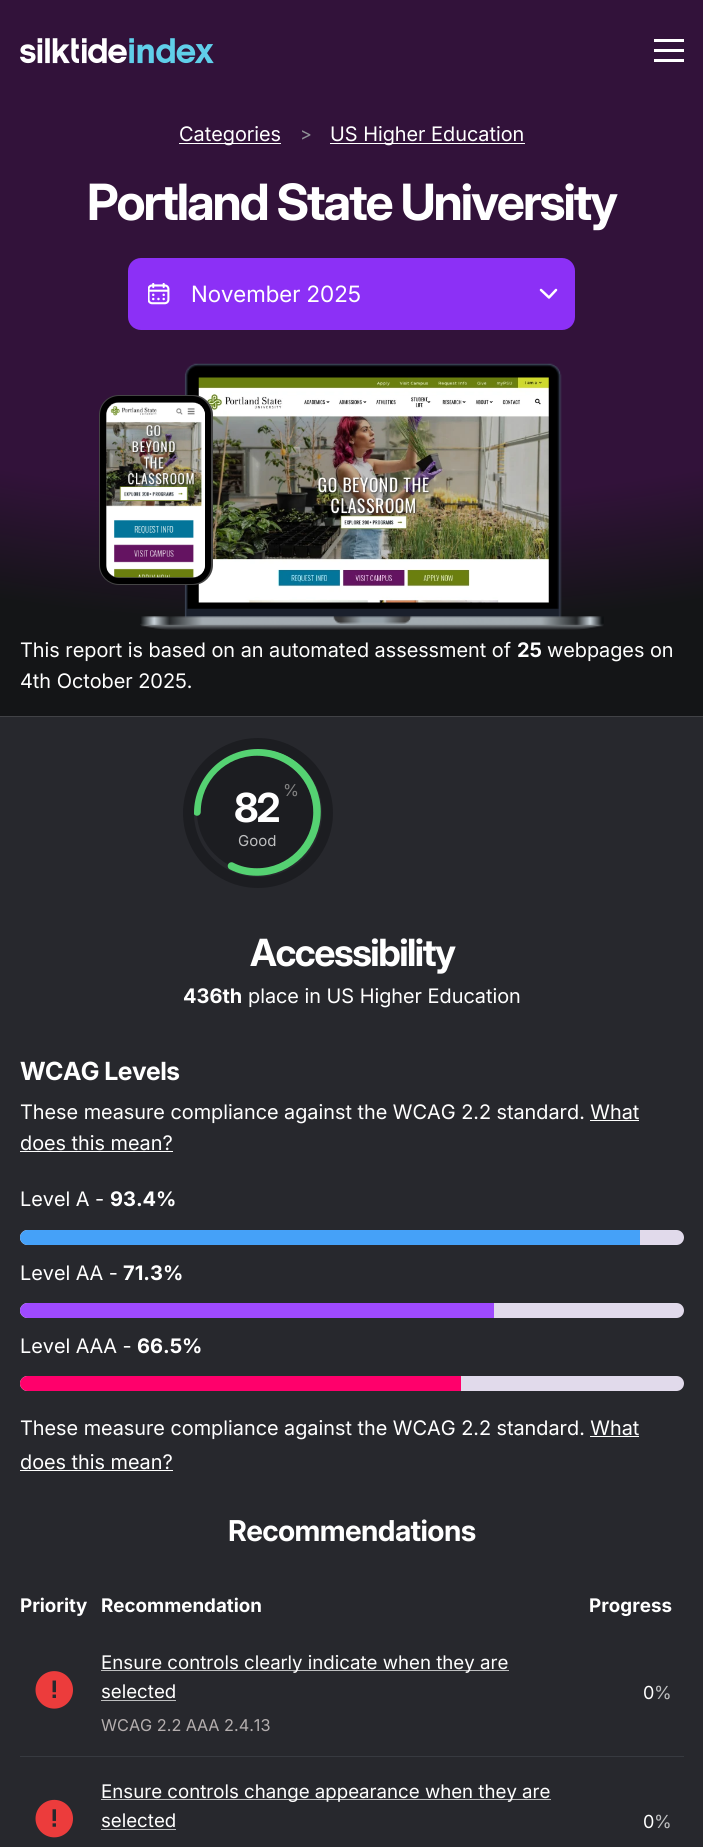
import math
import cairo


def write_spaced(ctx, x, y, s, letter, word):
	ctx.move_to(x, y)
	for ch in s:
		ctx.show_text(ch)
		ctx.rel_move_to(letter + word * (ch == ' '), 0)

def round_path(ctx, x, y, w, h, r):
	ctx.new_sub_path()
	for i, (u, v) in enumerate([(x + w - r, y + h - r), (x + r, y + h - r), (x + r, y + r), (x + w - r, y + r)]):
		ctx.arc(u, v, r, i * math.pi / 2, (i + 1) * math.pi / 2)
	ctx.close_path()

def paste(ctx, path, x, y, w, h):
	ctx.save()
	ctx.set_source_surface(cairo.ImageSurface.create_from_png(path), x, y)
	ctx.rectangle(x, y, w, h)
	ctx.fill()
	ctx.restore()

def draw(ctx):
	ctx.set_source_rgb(1, 1, 1)
	ctx.paint()
	gradient = cairo.RadialGradient(0, 0, 0, 0, 0, 1)
	gradient.set_matrix(cairo.Matrix(1 / 1250, 0, 0, 1 / 625, -1 * 352 / 1250, -1 * 0 / 625))
	gradient.add_color_stop_rgba(0, 0.196, 0.071, 0.227, 1)
	gradient.add_color_stop_rgba(0.8, 0.196, 0.071, 0.227, 1)
	gradient.add_color_stop_rgba(1, 0.078, 0.082, 0.09, 1)
	ctx.set_source(gradient)
	ctx.rectangle(0, 0, 703, 716)
	ctx.fill()
	paste(ctx, 'media/1.png', 20, 38, 194, 26)
	ctx.set_source_rgb(1, 1, 1)
	ctx.rectangle(654, 49, 30, 3)
	ctx.rectangle(654, 39, 30, 3)
	ctx.rectangle(654, 59, 30, 3)
	ctx.rectangle(179, 143, 102, 1)
	ctx.fill()
	ctx.select_font_face('Inter')
	ctx.set_font_size(20)
	ctx.move_to(179, 141)
	ctx.show_text('Categories')
	ctx.select_font_face('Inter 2')
	ctx.set_font_size(18)
	ctx.set_source_rgb(0.565, 0.573, 0.588)
	ctx.move_to(300, 140)
	ctx.show_text('>')
	ctx.set_source_rgb(1, 1, 1)
	ctx.rectangle(330, 143, 195, 1)
	ctx.fill()
	ctx.select_font_face('Inter')
	ctx.set_font_size(20)
	ctx.move_to(330, 141)
	ctx.show_text('US Higher Education')
	ctx.select_font_face('Inter', cairo.FONT_SLANT_NORMAL, cairo.FONT_WEIGHT_BOLD)
	ctx.set_font_size(50)
	write_spaced(ctx, 87, 220, 'Portland State University', -2, 0)
	ctx.set_source_rgb(0.549, 0.188, 0.961)
	round_path(ctx, 128, 258, 447, 72, 13)
	ctx.fill()
	paste(ctx, 'media/2.png', 148, 283, 22, 22)
	ctx.select_font_face('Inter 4')
	ctx.set_font_size(22.5)
	ctx.set_source_rgb(1, 1, 1)
	ctx.move_to(191, 302)
	ctx.show_text('November 2025')
	ctx.new_path()
	ctx.move_to(541, 290)
	ctx.line_to(549, 297.5)
	ctx.line_to(556, 290)
	ctx.set_line_width(2.5)
	ctx.set_line_cap(cairo.LINE_CAP_ROUND)
	ctx.set_line_join(cairo.LINE_JOIN_ROUND)
	ctx.stroke()
	paste(ctx, 'media/3.png', 140, 363, 464, 267)
	paste(ctx, 'media/5.png', 198, 377, 351, 226)
	round_path(ctx, 103, 399, 106, 182, 16)
	ctx.set_source_rgb(0.271, 0.271, 0.271)
	ctx.set_line_width(8)
	ctx.set_line_cap(cairo.LINE_CAP_BUTT)
	ctx.set_line_join(cairo.LINE_JOIN_MITER)
	ctx.stroke()
	round_path(ctx, 103, 399, 105, 182, 16)
	ctx.set_source_rgb(0, 0, 0)
	ctx.set_line_width(6)
	ctx.stroke()
	paste(ctx, 'media/4.png', 106, 402, 99, 176)
	ctx.select_font_face('Inter')
	ctx.set_font_size(20)
	ctx.set_source_rgb(1, 1, 1)
	ctx.move_to(20, 657)
	ctx.show_text('This report is based on an automated assessment of')
	ctx.select_font_face('Inter 2', cairo.FONT_SLANT_NORMAL, cairo.FONT_WEIGHT_BOLD)
	ctx.move_to(517, 657)
	ctx.show_text('25')
	ctx.select_font_face('Inter')
	ctx.move_to(547, 657)
	ctx.show_text('webpages on')
	ctx.move_to(20, 688)
	ctx.show_text('4th October 2025.')
	ctx.set_source_rgb(0.153, 0.157, 0.176)
	ctx.rectangle(0, 717, 703, 1130)
	ctx.fill()
	ctx.set_source_rgb(0.255, 0.259, 0.275)
	ctx.rectangle(0, 716, 703, 1)
	ctx.fill()
	ctx.set_source_rgb(0.11, 0.114, 0.129)
	ctx.new_path()
	ctx.move_to(317, 812)
	ctx.curve_to(317, 779, 290, 752, 257, 752)
	ctx.curve_to(224, 752, 197, 779, 197, 812)
	ctx.curve_to(197, 845, 224, 872, 257, 872)
	ctx.curve_to(290, 872, 317, 845, 317, 812)
	ctx.close_path()
	ctx.fill()
	ctx.new_path()
	ctx.move_to(317, 812)
	ctx.curve_to(317, 788, 303, 767, 282.5, 757.5)
	ctx.set_source_rgb(0.216, 0.227, 0.251)
	ctx.set_line_width(7.5)
	ctx.stroke()
	ctx.new_path()
	ctx.move_to(197, 812)
	ctx.curve_to(197, 778.5, 224, 752, 257, 752)
	ctx.curve_to(290, 752, 317, 778.5, 317, 812)
	ctx.curve_to(317, 845, 290, 872, 257, 872)
	ctx.curve_to(247.5, 872, 239, 870, 231.5, 866)
	ctx.set_source_rgb(0.333, 0.824, 0.447)
	ctx.set_line_cap(cairo.LINE_CAP_ROUND)
	ctx.stroke()
	ctx.select_font_face('Inter 2')
	ctx.set_font_size(16.25)
	ctx.set_source_rgb(0.51, 0.51, 0.51)
	ctx.move_to(283, 796)
	ctx.show_text('%')
	ctx.select_font_face('Inter', cairo.FONT_SLANT_NORMAL, cairo.FONT_WEIGHT_BOLD)
	ctx.set_font_size(40)
	ctx.set_source_rgb(1, 1, 1)
	write_spaced(ctx, 234, 822, '82', -2, 0)
	ctx.select_font_face('Inter 2')
	ctx.set_font_size(15)
	ctx.set_source_rgb(0.745, 0.749, 0.753)
	ctx.move_to(238, 846)
	ctx.show_text('Good')
	ctx.new_path()
	ctx.arc(258, 813, 69.5, 0, 2 * math.pi)
	ctx.set_source_rgb(0.11, 0.114, 0.129)
	ctx.set_line_width(11)
	ctx.set_line_cap(cairo.LINE_CAP_BUTT)
	ctx.stroke()
	ctx.select_font_face('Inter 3', cairo.FONT_SLANT_NORMAL, cairo.FONT_WEIGHT_BOLD)
	ctx.set_font_size(37.5)
	ctx.set_source_rgb(1, 1, 1)
	write_spaced(ctx, 250, 966, 'Accessibility', -1.5, 0)
	ctx.select_font_face('Inter 2', cairo.FONT_SLANT_NORMAL, cairo.FONT_WEIGHT_BOLD)
	ctx.set_font_size(20)
	ctx.move_to(183, 1003)
	ctx.show_text('436th')
	ctx.select_font_face('Inter')
	ctx.move_to(248, 1003)
	ctx.show_text('place in US Higher Education')
	ctx.select_font_face('Inter 4', cairo.FONT_SLANT_NORMAL, cairo.FONT_WEIGHT_BOLD)
	ctx.set_font_size(25)
	write_spaced(ctx, 20, 1080, 'WCAG Levels', -0.5, 0)
	ctx.select_font_face('Inter')
	ctx.set_font_size(20)
	ctx.move_to(20, 1119)
	ctx.show_text('These measure compliance against the WCAG 2.2 standard. What')
	ctx.move_to(20, 1150)
	ctx.show_text('does this mean?')
	ctx.rectangle(590, 1120, 49, 1)
	ctx.fill()
	ctx.rectangle(20, 1151, 153, 1)
	ctx.fill()
	ctx.move_to(20, 1206)
	ctx.show_text('Level A -')
	ctx.select_font_face('Inter 2', cairo.FONT_SLANT_NORMAL, cairo.FONT_WEIGHT_BOLD)
	ctx.move_to(110, 1206)
	ctx.show_text('93.4')
	ctx.move_to(156, 1206)
	ctx.show_text('%')
	ctx.set_source_rgb(0.882, 0.855, 0.918)
	round_path(ctx, 20, 1230, 664, 15, 7.5)
	ctx.fill()
	ctx.set_source_rgb(0.271, 0.631, 0.969)
	ctx.new_path()
	ctx.move_to(27.5, 1230)
	ctx.line_to(640, 1230)
	ctx.line_to(640, 1245)
	ctx.line_to(27.5, 1245)
	ctx.curve_to(23.5, 1245, 20, 1241.5, 20, 1237.5)
	ctx.curve_to(20, 1233.5, 23.5, 1230, 27.5, 1230)
	ctx.close_path()
	ctx.fill()
	ctx.select_font_face('Inter')
	ctx.set_source_rgb(1, 1, 1)
	ctx.move_to(20, 1280)
	ctx.show_text('Level AA -')
	ctx.select_font_face('Inter 2', cairo.FONT_SLANT_NORMAL, cairo.FONT_WEIGHT_BOLD)
	ctx.move_to(123, 1280)
	ctx.show_text('71.3')
	ctx.move_to(163, 1280)
	ctx.show_text('%')
	ctx.set_source_rgb(0.882, 0.855, 0.918)
	round_path(ctx, 20, 1303, 664, 15, 7.5)
	ctx.fill()
	ctx.set_source_rgb(0.624, 0.29, 1)
	ctx.new_path()
	ctx.move_to(27.5, 1303)
	ctx.line_to(494, 1303)
	ctx.line_to(494, 1318)
	ctx.line_to(27.5, 1318)
	ctx.curve_to(23.5, 1318, 20, 1314.5, 20, 1310.5)
	ctx.curve_to(20, 1306.5, 23.5, 1303, 27.5, 1303)
	ctx.close_path()
	ctx.fill()
	ctx.select_font_face('Inter')
	ctx.set_source_rgb(1, 1, 1)
	ctx.move_to(20, 1353)
	ctx.show_text('Level AAA -')
	ctx.select_font_face('Inter 2', cairo.FONT_SLANT_NORMAL, cairo.FONT_WEIGHT_BOLD)
	ctx.move_to(137, 1353)
	ctx.show_text('66.5')
	ctx.move_to(182, 1353)
	ctx.show_text('%')
	ctx.set_source_rgb(0.882, 0.855, 0.918)
	round_path(ctx, 20, 1376, 664, 15, 7.5)
	ctx.fill()
	ctx.set_source_rgb(1, 0, 0.42)
	ctx.new_path()
	ctx.move_to(27.5, 1376)
	ctx.line_to(461, 1376)
	ctx.line_to(461, 1391)
	ctx.line_to(27.5, 1391)
	ctx.curve_to(23.5, 1391, 20, 1387.5, 20, 1383.5)
	ctx.curve_to(20, 1379.5, 23.5, 1376, 27.5, 1376)
	ctx.close_path()
	ctx.fill()
	ctx.select_font_face('Inter')
	ctx.set_source_rgb(1, 1, 1)
	ctx.move_to(20, 1435)
	ctx.show_text('These measure compliance against the WCAG 2.2 standard. What')
	ctx.move_to(20, 1469)
	ctx.show_text('does this mean?')
	ctx.rectangle(590, 1436, 49, 1)
	ctx.fill()
	ctx.rectangle(20, 1470, 153, 1)
	ctx.fill()
	ctx.select_font_face('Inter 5', cairo.FONT_SLANT_NORMAL, cairo.FONT_WEIGHT_BOLD)
	ctx.set_font_size(28.75)
	write_spaced(ctx, 228, 1541, 'Recommendations', -0.6, 0)
	ctx.select_font_face('Inter 2', cairo.FONT_SLANT_NORMAL, cairo.FONT_WEIGHT_BOLD)
	ctx.set_font_size(18.75)
	for x, y, s in [
		(20, 1612, 'Priority'),
		(101, 1612, 'Recommendation'),
		(589, 1612, 'Progress'),
	]:
		ctx.move_to(x, y)
		ctx.show_text(s)
	paste(ctx, 'media/6.png', 35, 1671, 38, 38)
	ctx.set_source_rgb(0.745, 0.749, 0.753)
	ctx.rectangle(101, 1670, 408, 1)
	ctx.fill()
	ctx.select_font_face('Inter 3')
	ctx.set_source_rgb(1, 1, 1)
	ctx.move_to(101, 1669)
	ctx.show_text('Ensure controls clearly indicate when they are')
	ctx.move_to(101, 1698)
	ctx.show_text('selected')
	ctx.set_source_rgb(0.745, 0.749, 0.753)
	ctx.rectangle(101, 1700, 75, 1)
	ctx.fill()
	ctx.select_font_face('Inter 2')
	ctx.set_font_size(16.25)
	ctx.set_source_rgb(0.706, 0.682, 0.682)
	ctx.move_to(101, 1731)
	ctx.show_text('WCAG 2.2 AAA 2.4.13')
	ctx.set_font_size(18)
	ctx.set_source_rgb(1, 1, 1)
	ctx.move_to(643, 1699)
	ctx.show_text('0')
	ctx.set_source_rgb(0.745, 0.749, 0.753)
	ctx.move_to(654, 1699)
	ctx.show_text('%')
	paste(ctx, 'media/7.png', 35, 1799, 38, 39)
	ctx.rectangle(101, 1799, 450, 1)
	ctx.fill()
	ctx.select_font_face('Inter 3')
	ctx.set_font_size(18.75)
	ctx.set_source_rgb(1, 1, 1)
	ctx.move_to(101, 1798)
	ctx.show_text('Ensure controls change appearance when they are')
	ctx.move_to(101, 1827)
	ctx.show_text('selected')
	ctx.set_source_rgb(0.745, 0.749, 0.753)
	ctx.rectangle(101, 1829, 75, 1)
	ctx.fill()
	ctx.set_source_rgb(0.216, 0.227, 0.251)
	ctx.rectangle(20, 1756, 664, 1)
	ctx.fill()
	ctx.select_font_face('Inter 2')
	ctx.set_font_size(18)
	ctx.set_source_rgb(1, 1, 1)
	ctx.move_to(643, 1828)
	ctx.show_text('0')
	ctx.set_source_rgb(0.745, 0.749, 0.753)
	ctx.move_to(654, 1828)
	ctx.show_text('%')


surface = cairo.ImageSurface(cairo.FORMAT_RGB24, 703, 1847)
ctx = cairo.Context(surface)
options = cairo.FontOptions()
options.set_hint_metrics(cairo.HINT_METRICS_OFF)
options.set_hint_style(cairo.HINT_STYLE_NONE)
ctx.set_font_options(options)
ctx.set_miter_limit(4)
draw(ctx)
surface.write_to_png('image.png')
